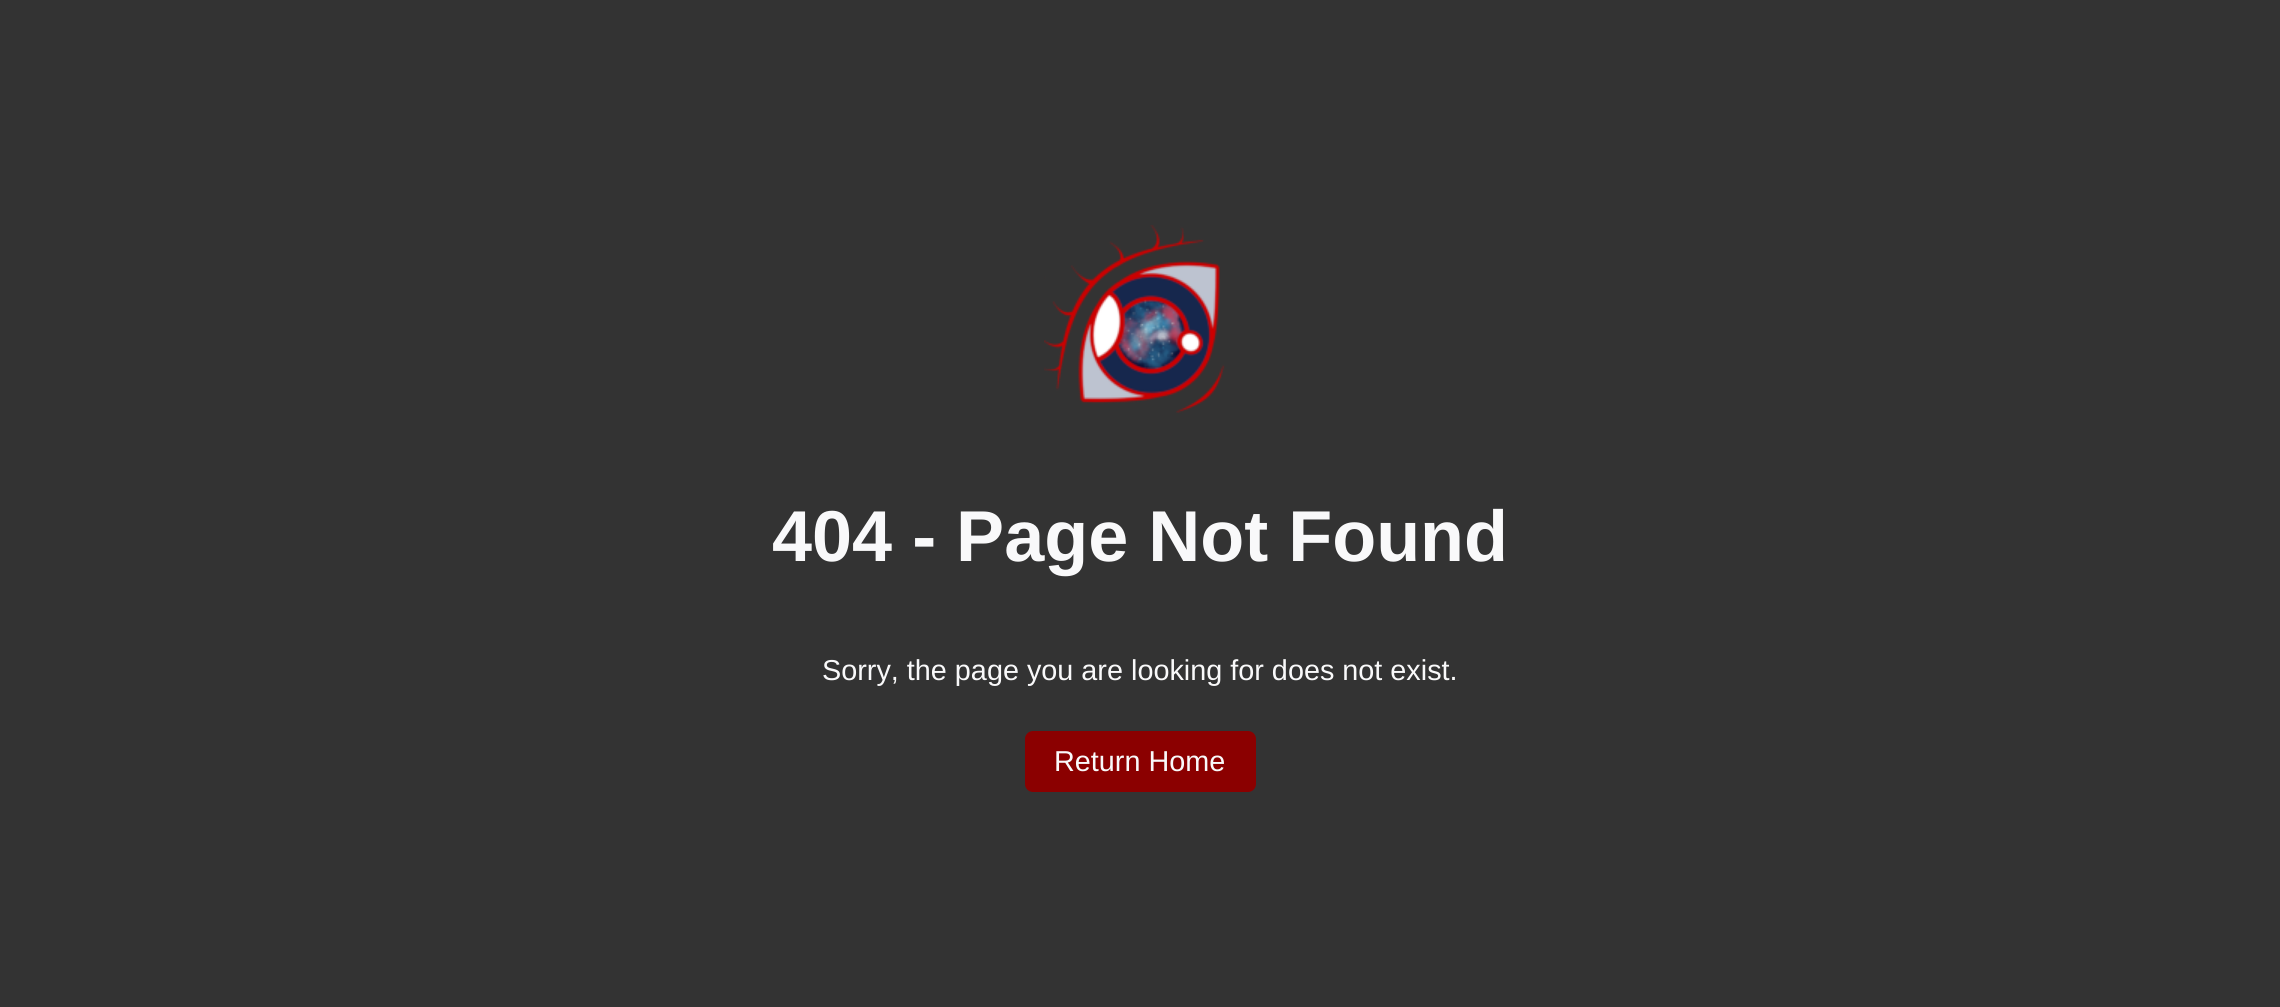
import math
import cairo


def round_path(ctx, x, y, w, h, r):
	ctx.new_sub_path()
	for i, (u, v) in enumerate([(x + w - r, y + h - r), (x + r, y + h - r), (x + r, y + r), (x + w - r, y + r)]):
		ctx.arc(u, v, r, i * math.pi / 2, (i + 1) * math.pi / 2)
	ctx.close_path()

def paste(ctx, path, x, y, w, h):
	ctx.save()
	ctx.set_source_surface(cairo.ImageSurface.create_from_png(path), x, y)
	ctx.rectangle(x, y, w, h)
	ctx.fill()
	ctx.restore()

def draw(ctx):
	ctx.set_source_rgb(0.2, 0.2, 0.2)
	ctx.paint()
	paste(ctx, 'media/1.png', 1044, 225, 181, 188)
	ctx.select_font_face('Liberation Sans', cairo.FONT_SLANT_NORMAL, cairo.FONT_WEIGHT_BOLD)
	ctx.set_font_size(72)
	ctx.set_source_rgb(0.973, 0.976, 0.98)
	ctx.move_to(772, 561)
	ctx.show_text('404 - Page Not Found')
	ctx.select_font_face('Liberation Sans')
	ctx.set_font_size(28.8)
	ctx.move_to(822, 680)
	ctx.show_text('Sorry, the page you are looking for does not exist.')
	ctx.set_source_rgb(0.545, 0, 0)
	round_path(ctx, 1025, 731, 231, 61, 8)
	ctx.fill()
	ctx.set_source_rgb(0.973, 0.976, 0.98)
	ctx.move_to(1054, 771)
	ctx.show_text('Return Home')


surface = cairo.ImageSurface(cairo.FORMAT_RGB24, 2280, 1007)
ctx = cairo.Context(surface)
options = cairo.FontOptions()
options.set_hint_metrics(cairo.HINT_METRICS_OFF)
options.set_hint_style(cairo.HINT_STYLE_NONE)
ctx.set_font_options(options)
ctx.set_miter_limit(4)
draw(ctx)
surface.write_to_png('image.png')
